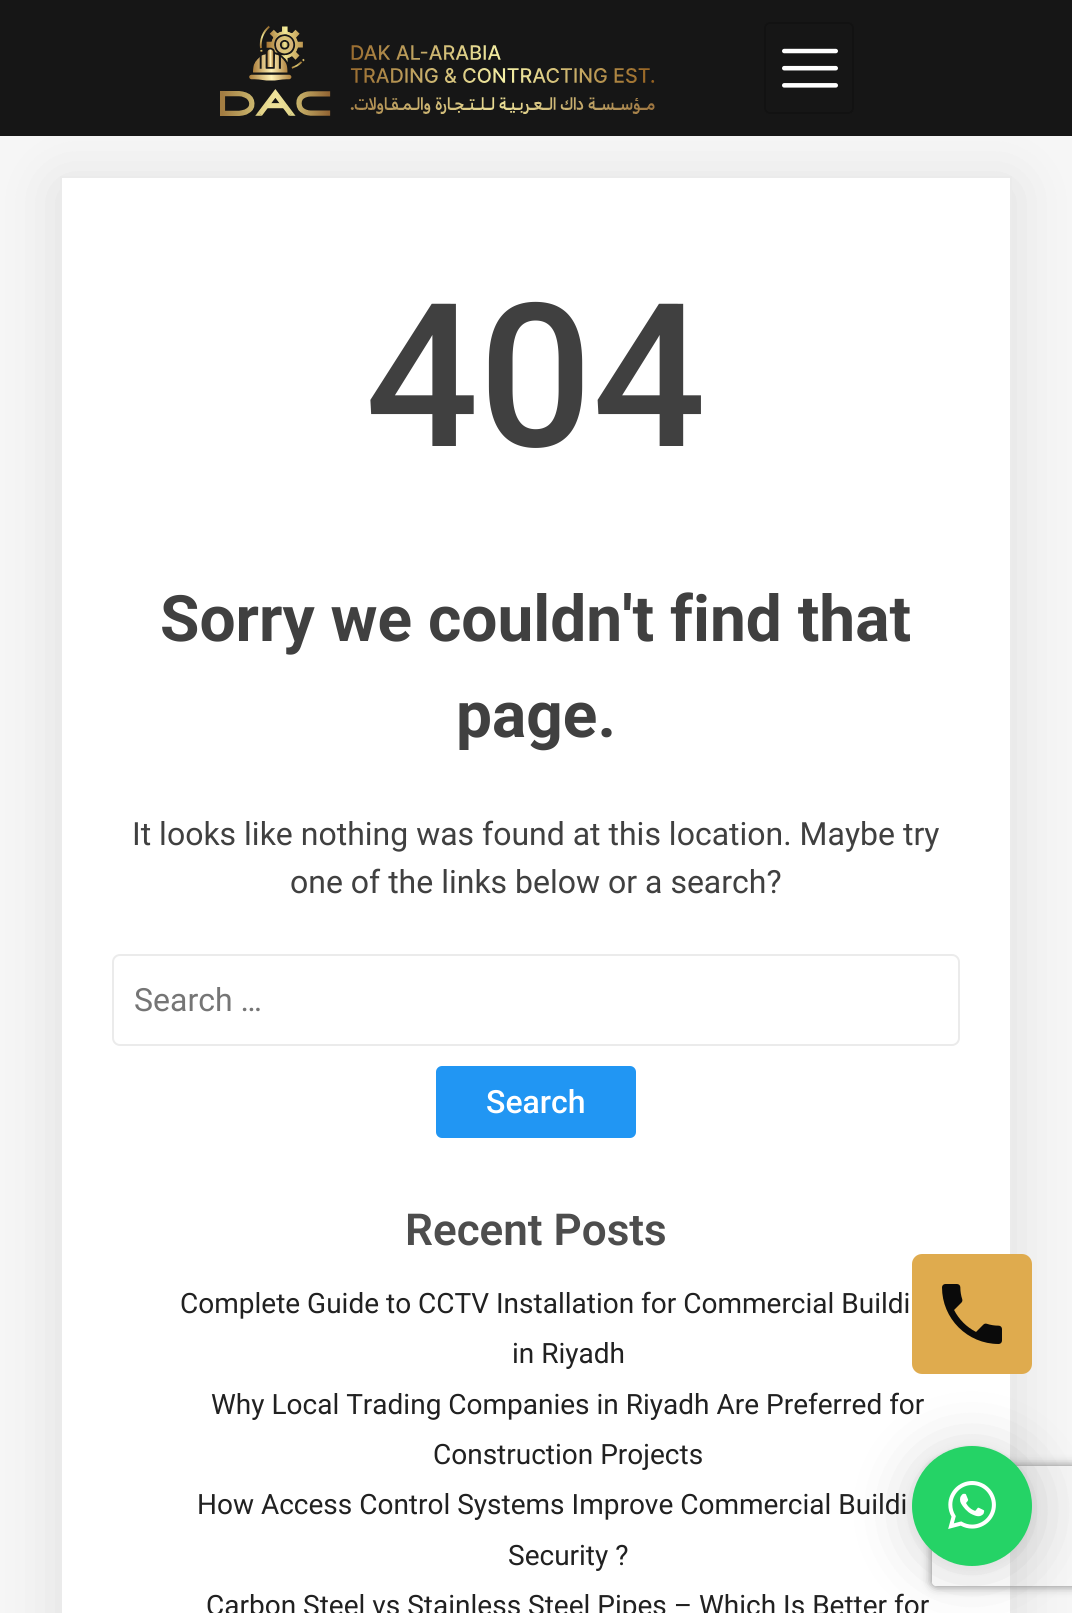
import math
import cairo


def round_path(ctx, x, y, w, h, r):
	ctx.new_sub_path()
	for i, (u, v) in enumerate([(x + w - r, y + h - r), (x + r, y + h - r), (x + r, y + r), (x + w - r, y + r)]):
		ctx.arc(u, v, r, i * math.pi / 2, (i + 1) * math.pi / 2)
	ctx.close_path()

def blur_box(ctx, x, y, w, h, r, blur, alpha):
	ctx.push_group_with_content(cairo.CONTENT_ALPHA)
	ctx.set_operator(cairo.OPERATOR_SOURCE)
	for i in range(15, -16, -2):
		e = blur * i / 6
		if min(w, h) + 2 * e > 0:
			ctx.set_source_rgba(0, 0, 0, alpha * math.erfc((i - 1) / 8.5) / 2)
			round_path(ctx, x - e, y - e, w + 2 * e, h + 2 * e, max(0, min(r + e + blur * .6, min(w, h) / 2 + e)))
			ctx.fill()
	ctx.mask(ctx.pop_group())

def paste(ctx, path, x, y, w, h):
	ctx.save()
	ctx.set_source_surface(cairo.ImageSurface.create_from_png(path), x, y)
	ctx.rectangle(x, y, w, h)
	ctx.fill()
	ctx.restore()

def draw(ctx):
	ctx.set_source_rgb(0.961, 0.961, 0.961)
	ctx.paint()
	ctx.set_source_rgb(0, 0, 0)
	blur_box(ctx, 60, 186, 952, 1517, 0, 30, 0.1)
	ctx.set_source_rgb(0.086, 0.086, 0.086)
	ctx.rectangle(0, 0, 1072, 136)
	ctx.fill()
	paste(ctx, 'media/1.png', 220, 25, 435, 91)
	round_path(ctx, 765, 23, 88, 90, 5)
	ctx.set_source_rgb(0.071, 0.071, 0.071)
	ctx.stroke()
	paste(ctx, 'media/2.png', 782, 48, 56, 40)
	ctx.set_source_rgb(1, 1, 1)
	ctx.rectangle(61, 177, 950, 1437)
	ctx.fill_preserve()
	ctx.set_source_rgb(0.918, 0.918, 0.918)
	ctx.stroke()
	ctx.select_font_face('Roboto Medium')
	ctx.set_font_size(200)
	ctx.set_source_rgb(0.251, 0.251, 0.251)
	ctx.move_to(365, 446)
	ctx.show_text('404')
	ctx.select_font_face('Roboto', cairo.FONT_SLANT_NORMAL, cairo.FONT_WEIGHT_BOLD)
	ctx.set_font_size(64)
	ctx.move_to(160, 641)
	ctx.show_text('Sorry we couldn\'t find that')
	ctx.move_to(456, 737)
	ctx.show_text('page.')
	ctx.select_font_face('Roboto')
	ctx.set_font_size(32)
	ctx.move_to(132, 845)
	ctx.show_text('It looks like nothing was found at this location. Maybe try')
	ctx.move_to(290, 893)
	ctx.show_text('one of the links below or a search?')
	round_path(ctx, 113, 955, 846, 90, 7)
	ctx.set_source_rgb(0.918, 0.918, 0.918)
	ctx.stroke()
	ctx.set_source_rgb(0.459, 0.459, 0.459)
	ctx.move_to(134, 1011)
	ctx.show_text('Search …')
	ctx.set_source_rgb(0.129, 0.588, 0.953)
	round_path(ctx, 436, 1066, 200, 72, 6)
	ctx.fill()
	ctx.select_font_face('Roboto Medium')
	ctx.set_source_rgb(1, 1, 1)
	ctx.move_to(486, 1113)
	ctx.show_text('Search')
	ctx.select_font_face('Roboto SemiBold')
	ctx.set_font_size(44)
	ctx.set_source_rgb(0.302, 0.302, 0.302)
	ctx.move_to(405, 1245)
	ctx.show_text('Recent Posts')
	ctx.select_font_face('Roboto')
	ctx.set_font_size(28)
	ctx.set_source_rgb(0.129, 0.129, 0.129)
	for x, y, s in [
		(180, 1313, 'Complete Guide to CCTV Installation for Commercial Buildi'),
		(512, 1363, 'in Riyadh'),
		(211, 1414, 'Why Local Trading Companies in Riyadh Are Preferred for'),
		(433, 1464, 'Construction Projects'),
		(197, 1514, 'How Access Control Systems Improve Commercial Buildi'),
		(508, 1565, 'Security ?'),
		(206, 1615, 'Carbon Steel vs Stainless Steel Pipes – Which Is Better for'),
	]:
		ctx.move_to(x, y)
		ctx.show_text(s)
	ctx.set_source_rgb(0.875, 0.671, 0.306)
	round_path(ctx, 912, 1254, 120, 120, 10)
	ctx.fill()
	paste(ctx, 'media/3.png', 942, 1284, 60, 60)
	ctx.set_source_rgb(0, 0, 0)
	blur_box(ctx, 912, 1450, 120, 120, 60, 32, 0.16)
	blur_box(ctx, 912, 1448, 120, 120, 60, 6, 0.06)
	ctx.save()
	ctx.set_fill_rule(cairo.FILL_RULE_EVEN_ODD)
	ctx.new_path()
	ctx.move_to(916, 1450)
	ctx.line_to(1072, 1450)
	ctx.line_to(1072, 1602)
	ctx.line_to(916, 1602)
	ctx.close_path()
	ctx.move_to(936, 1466)
	ctx.line_to(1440, 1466)
	ctx.curve_to(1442, 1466, 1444, 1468, 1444, 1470)
	ctx.line_to(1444, 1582)
	ctx.curve_to(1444, 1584, 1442, 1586, 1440, 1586)
	ctx.line_to(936, 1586)
	ctx.curve_to(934, 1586, 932, 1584, 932, 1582)
	ctx.line_to(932, 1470)
	ctx.curve_to(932, 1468, 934, 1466, 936, 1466)
	ctx.close_path()
	ctx.clip()
	ctx.set_source_rgb(0.502, 0.502, 0.502)
	blur_box(ctx, 932, 1466, 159, 120, 4, 5, 1)
	ctx.restore()
	ctx.set_source_rgb(0.145, 0.827, 0.4)
	ctx.arc(972, 1506, 60, 0, 2 * math.pi)
	ctx.fill()
	paste(ctx, 'media/4.png', 948, 1481, 48, 48)


surface = cairo.ImageSurface(cairo.FORMAT_RGB24, 1072, 1613)
ctx = cairo.Context(surface)
options = cairo.FontOptions()
options.set_hint_metrics(cairo.HINT_METRICS_OFF)
options.set_hint_style(cairo.HINT_STYLE_NONE)
ctx.set_font_options(options)
ctx.set_miter_limit(4)
draw(ctx)
surface.write_to_png('image.png')
